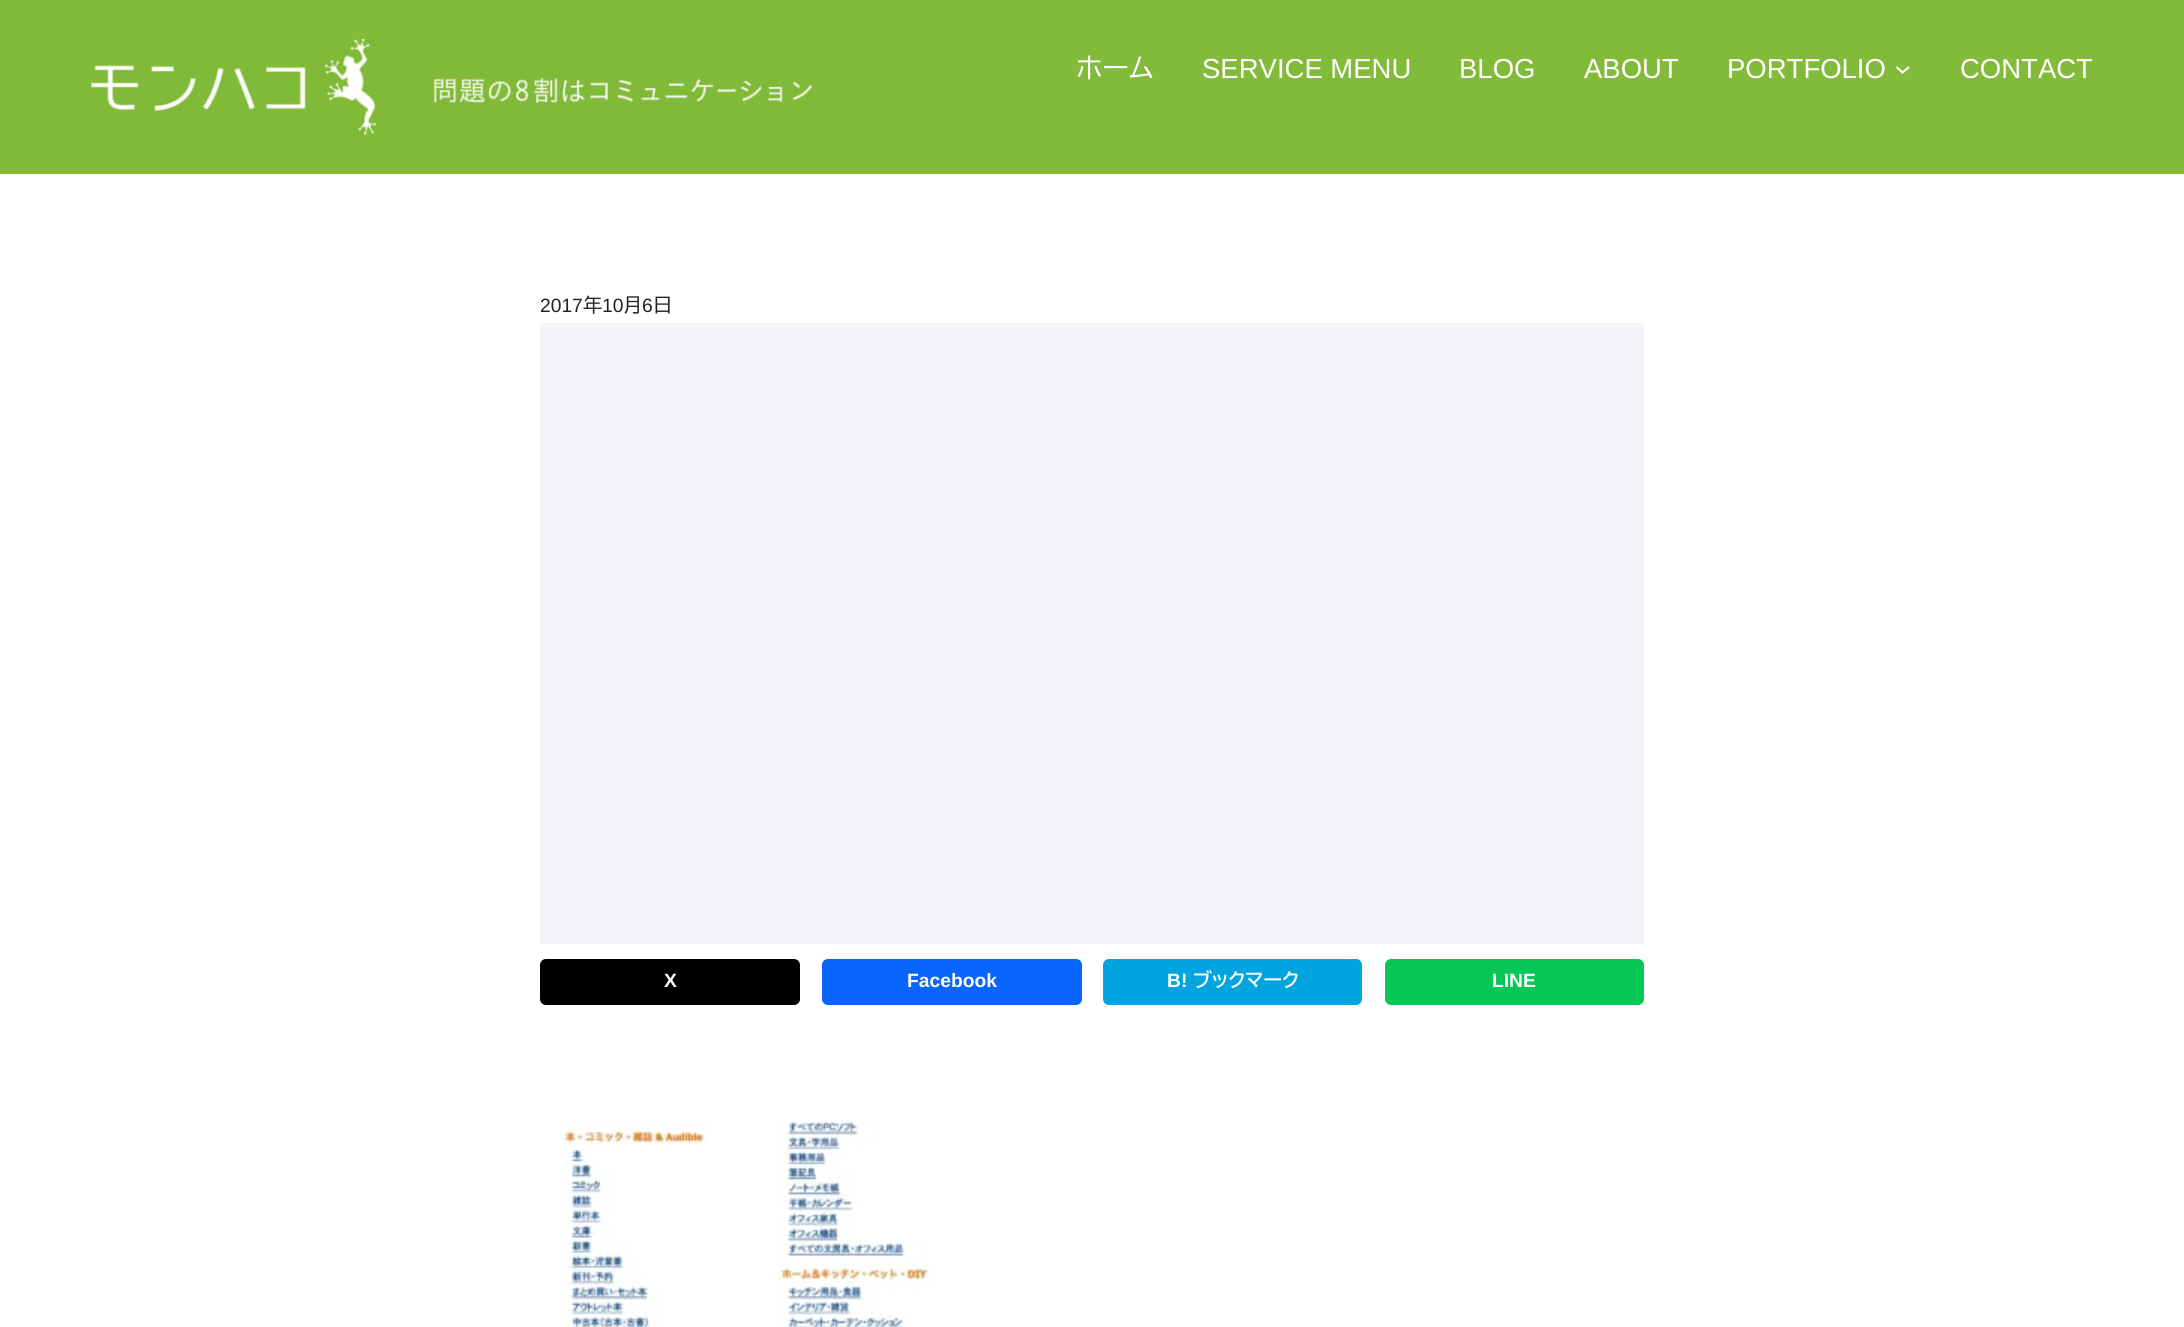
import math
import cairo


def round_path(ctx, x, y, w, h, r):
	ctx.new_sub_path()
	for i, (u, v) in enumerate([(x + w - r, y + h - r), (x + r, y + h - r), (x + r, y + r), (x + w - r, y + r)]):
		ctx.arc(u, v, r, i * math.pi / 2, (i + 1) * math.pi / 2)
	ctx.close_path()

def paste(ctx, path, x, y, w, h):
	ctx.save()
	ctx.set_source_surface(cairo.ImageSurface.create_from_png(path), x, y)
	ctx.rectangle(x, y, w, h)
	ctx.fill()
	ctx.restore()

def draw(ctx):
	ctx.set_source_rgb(1, 1, 1)
	ctx.paint()
	ctx.set_source_rgb(0.51, 0.729, 0.224)
	ctx.rectangle(0, 0, 2184, 174)
	ctx.fill()
	paste(ctx, 'media/1.png', 91, 39, 721, 96)
	ctx.select_font_face('BIZ UDPGothic')
	ctx.set_font_size(27.5)
	ctx.set_source_rgb(1, 1, 1)
	ctx.move_to(1076, 78)
	ctx.show_text('ホーム')
	ctx.select_font_face('Liberation Sans')
	for x, y, s in [
		(1202, 78, 'SERVICE MENU'),
		(1459, 78, 'BLOG'),
		(1584, 78, 'ABOUT'),
		(1727, 78, 'PORTFOLIO'),
	]:
		ctx.move_to(x, y)
		ctx.show_text(s)
	ctx.new_path()
	ctx.move_to(1896.5, 67)
	ctx.line_to(1902.5, 72.5)
	ctx.line_to(1909, 67)
	ctx.set_line_width(2.1)
	ctx.stroke()
	ctx.move_to(1960, 78)
	ctx.show_text('CONTACT')
	ctx.set_font_size(19.25)
	ctx.set_source_rgb(0.133, 0.133, 0.133)
	ctx.move_to(540, 312)
	ctx.show_text('2017')
	ctx.select_font_face('BIZ UDPGothic')
	ctx.move_to(583, 312)
	ctx.show_text('年')
	ctx.select_font_face('Liberation Sans')
	ctx.move_to(602, 312)
	ctx.show_text('10')
	ctx.select_font_face('BIZ UDPGothic')
	ctx.move_to(623, 312)
	ctx.show_text('月')
	ctx.select_font_face('Liberation Sans')
	ctx.move_to(642, 312)
	ctx.show_text('6')
	ctx.select_font_face('BIZ UDPGothic')
	ctx.move_to(653, 312)
	ctx.show_text('日')
	ctx.set_source_rgb(0.953, 0.957, 0.965)
	ctx.rectangle(540, 323, 1104, 621)
	ctx.fill()
	ctx.set_source_rgb(0, 0, 0)
	round_path(ctx, 540, 959, 260, 46, 6)
	ctx.fill()
	ctx.select_font_face('Liberation Sans', cairo.FONT_SLANT_NORMAL, cairo.FONT_WEIGHT_BOLD)
	ctx.set_source_rgb(1, 1, 1)
	ctx.move_to(664, 987)
	ctx.show_text('X')
	ctx.set_source_rgb(0.035, 0.396, 0.996)
	round_path(ctx, 822, 959, 260, 46, 6)
	ctx.fill()
	ctx.set_source_rgb(1, 1, 1)
	ctx.move_to(907, 987)
	ctx.show_text('Facebook')
	ctx.set_source_rgb(0.004, 0.643, 0.871)
	round_path(ctx, 1103, 959, 259, 46, 6)
	ctx.fill()
	ctx.set_source_rgb(1, 1, 1)
	ctx.move_to(1167, 987)
	ctx.show_text('B!')
	ctx.select_font_face('BIZ UDPGothic', cairo.FONT_SLANT_NORMAL, cairo.FONT_WEIGHT_BOLD)
	ctx.move_to(1193, 987)
	ctx.show_text('ブックマーク')
	ctx.set_source_rgb(0.024, 0.78, 0.333)
	round_path(ctx, 1385, 959, 259, 46, 6)
	ctx.fill()
	ctx.select_font_face('Liberation Sans', cairo.FONT_SLANT_NORMAL, cairo.FONT_WEIGHT_BOLD)
	ctx.set_source_rgb(1, 1, 1)
	ctx.move_to(1492, 987)
	ctx.show_text('LINE')
	paste(ctx, 'media/2.png', 563, 1120, 369, 207)


surface = cairo.ImageSurface(cairo.FORMAT_RGB24, 2184, 1327)
ctx = cairo.Context(surface)
options = cairo.FontOptions()
options.set_hint_metrics(cairo.HINT_METRICS_OFF)
options.set_hint_style(cairo.HINT_STYLE_NONE)
ctx.set_font_options(options)
ctx.set_miter_limit(4)
draw(ctx)
surface.write_to_png('image.png')
